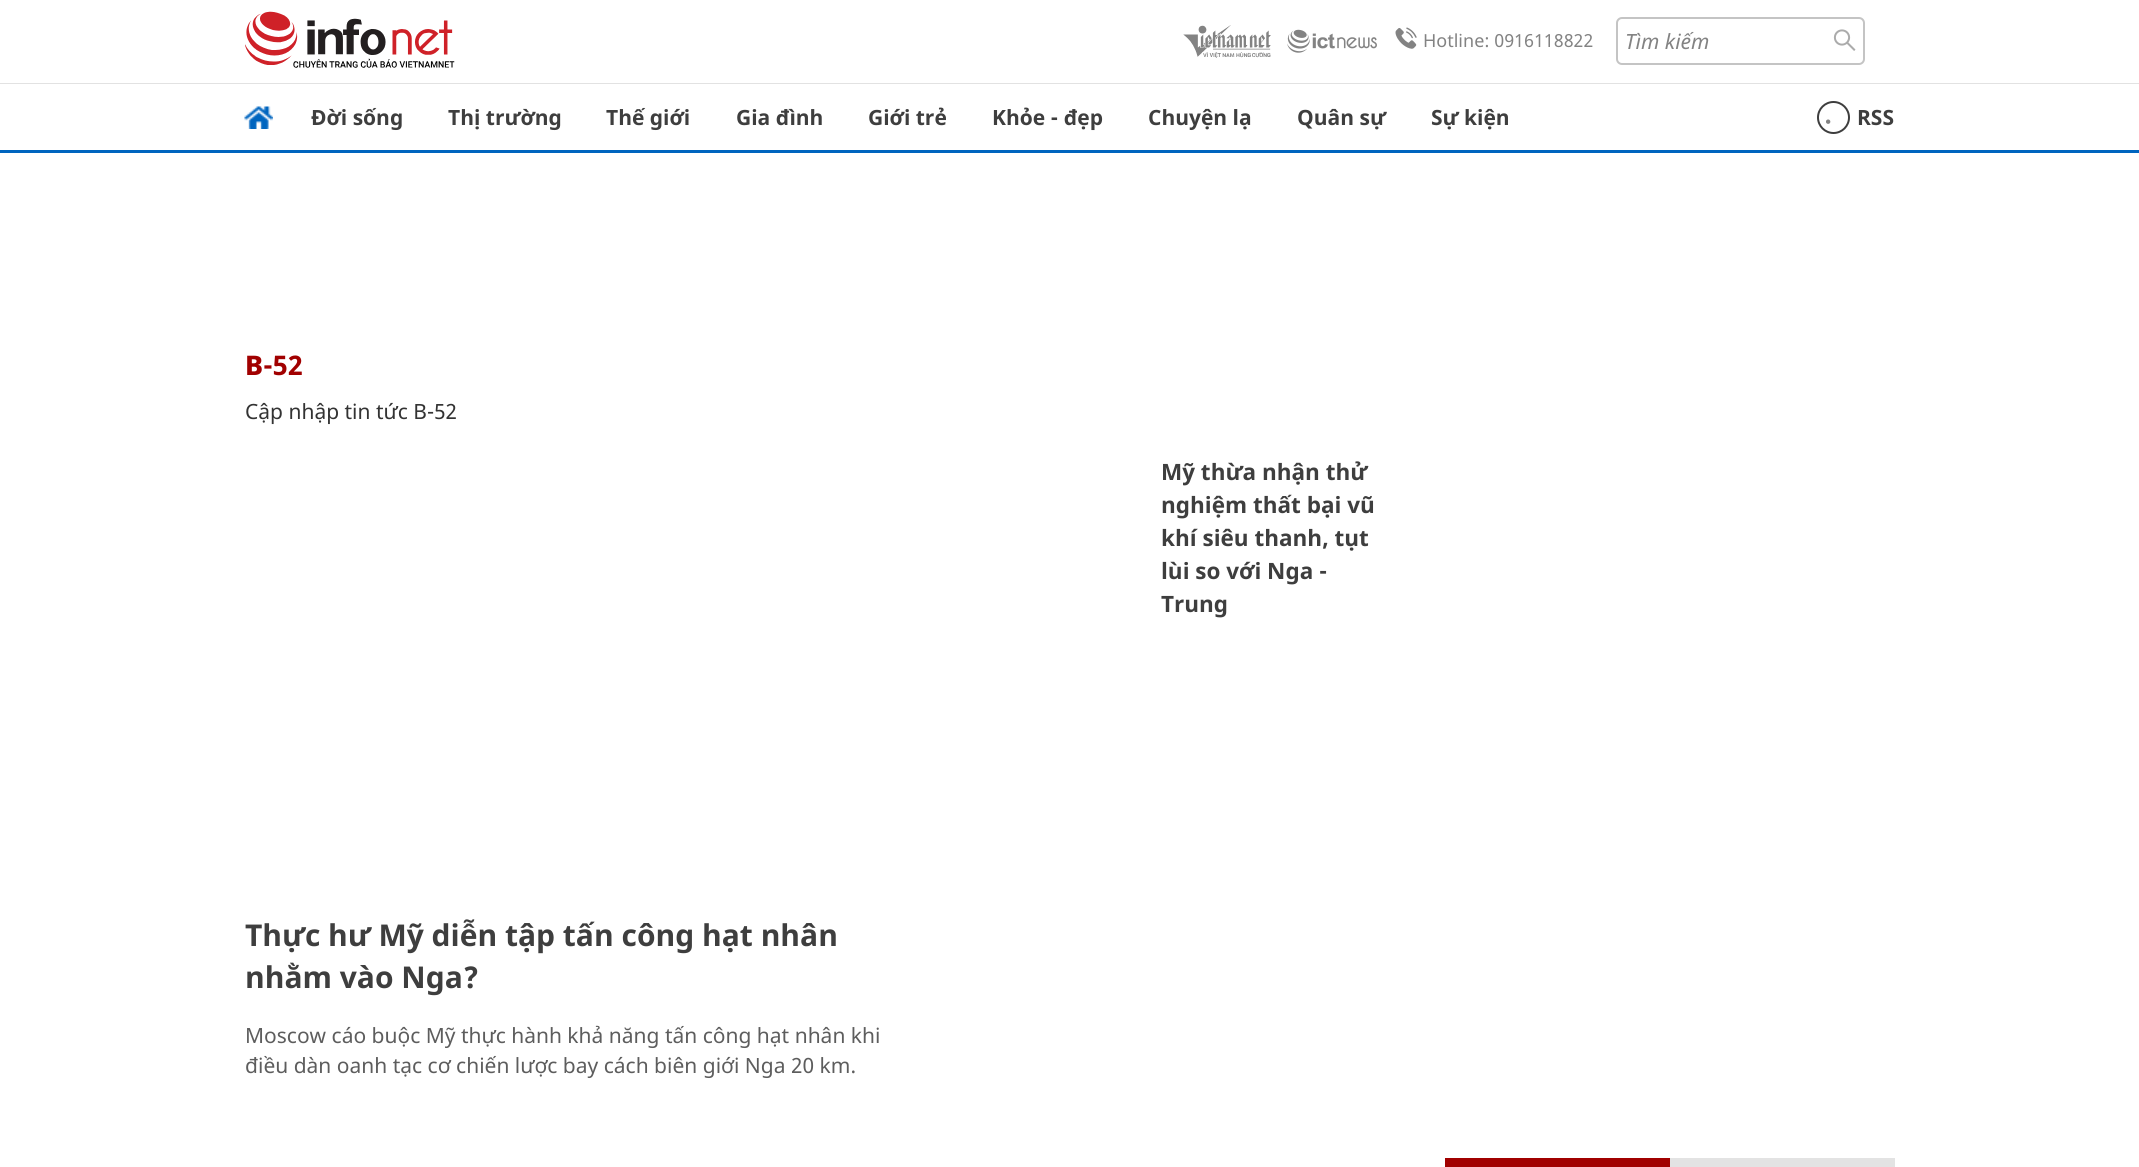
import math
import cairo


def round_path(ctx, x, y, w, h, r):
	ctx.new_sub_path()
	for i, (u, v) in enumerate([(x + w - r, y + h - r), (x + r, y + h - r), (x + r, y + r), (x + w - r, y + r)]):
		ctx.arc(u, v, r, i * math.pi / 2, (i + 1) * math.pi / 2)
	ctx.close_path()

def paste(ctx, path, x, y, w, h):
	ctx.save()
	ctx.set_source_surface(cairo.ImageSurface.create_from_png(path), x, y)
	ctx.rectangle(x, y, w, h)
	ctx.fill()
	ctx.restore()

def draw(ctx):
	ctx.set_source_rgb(1, 1, 1)
	ctx.paint()
	ctx.set_source_rgb(0.886, 0.886, 0.886)
	ctx.rectangle(0, 83, 2139, 1)
	ctx.fill()
	paste(ctx, 'media/1.png', 245, 11, 210, 57)
	paste(ctx, 'media/2.png', 1183, 25, 88, 33)
	paste(ctx, 'media/3.png', 1287, 29, 90, 24)
	paste(ctx, 'media/4.png', 1395, 27, 22, 22)
	ctx.select_font_face('Noto Sans')
	ctx.set_font_size(18)
	ctx.set_source_rgb(0.514, 0.514, 0.514)
	ctx.move_to(1423, 47)
	ctx.show_text('Hotline: 0916118822')
	round_path(ctx, 1617, 18, 247, 46, 5)
	ctx.set_source_rgb(0.769, 0.769, 0.769)
	ctx.stroke()
	ctx.select_font_face('Noto Sans', cairo.FONT_SLANT_ITALIC)
	ctx.set_font_size(21)
	ctx.set_source_rgb(0.514, 0.514, 0.514)
	ctx.move_to(1625, 49)
	ctx.show_text('Tìm kiếm')
	paste(ctx, 'media/5.png', 1833, 29, 23, 22)
	ctx.set_source_rgb(0, 0.396, 0.749)
	ctx.rectangle(0, 150, 2139, 3)
	ctx.fill()
	paste(ctx, 'media/6.png', 244, 106, 29, 23)
	ctx.select_font_face('Noto Sans', cairo.FONT_SLANT_NORMAL, cairo.FONT_WEIGHT_BOLD)
	ctx.set_source_rgb(0.243, 0.243, 0.243)
	for x, y, s in [
		(311, 125, 'Đời sống'),
		(448, 125, 'Thị trường'),
		(606, 125, 'Thế giới'),
		(736, 125, 'Gia đình'),
		(868, 125, 'Giới trẻ'),
		(992, 125, 'Khỏe - đẹp'),
		(1148, 125, 'Chuyện lạ'),
		(1297, 125, 'Quân sự'),
		(1431, 125, 'Sự kiện'),
	]:
		ctx.move_to(x, y)
		ctx.show_text(s)
	paste(ctx, 'media/7.png', 1826, 119, 5, 5)
	ctx.arc(1833.5, 117.5, 15.5, 0, 2 * math.pi)
	ctx.stroke()
	ctx.move_to(1857, 125)
	ctx.show_text('RSS')
	ctx.select_font_face('Noto Sans ExtraBold')
	ctx.set_font_size(27)
	ctx.set_source_rgb(0.631, 0, 0)
	ctx.move_to(245, 375)
	ctx.show_text('B')
	ctx.select_font_face('Noto Sans', cairo.FONT_SLANT_NORMAL, cairo.FONT_WEIGHT_BOLD)
	ctx.move_to(263, 375)
	ctx.show_text('-52')
	ctx.select_font_face('Noto Sans')
	ctx.set_font_size(21)
	ctx.set_source_rgb(0.2, 0.2, 0.2)
	ctx.move_to(245, 419)
	ctx.show_text('Cập nhập tin tức B-52')
	ctx.select_font_face('Noto Sans', cairo.FONT_SLANT_NORMAL, cairo.FONT_WEIGHT_BOLD)
	ctx.set_font_size(22.5)
	ctx.set_source_rgb(0.243, 0.243, 0.243)
	for x, y, s in [
		(1161, 480, 'Mỹ thừa nhận thử'),
		(1161, 513, 'nghiệm thất bại vũ'),
		(1161, 546, 'khí siêu thanh, tụt'),
		(1161, 579, 'lùi so với Nga -'),
		(1161, 612, 'Trung'),
	]:
		ctx.move_to(x, y)
		ctx.show_text(s)
	ctx.set_font_size(30)
	ctx.move_to(245, 946)
	ctx.show_text('Thực hư Mỹ diễn tập tấn công hạt nhân')
	ctx.move_to(245, 988)
	ctx.show_text('nhằm vào Nga?')
	ctx.select_font_face('Noto Sans')
	ctx.set_font_size(21)
	ctx.set_source_rgb(0.365, 0.365, 0.365)
	ctx.move_to(245, 1043)
	ctx.show_text('Moscow cáo buộc Mỹ thực hành khả năng tấn công hạt nhân khi')
	ctx.move_to(245, 1073)
	ctx.show_text('điều dàn oanh tạc cơ chiến lược bay cách biên giới Nga 20 km.')
	ctx.set_source_rgb(0.631, 0, 0)
	ctx.rectangle(1445, 1158, 225, 9)
	ctx.fill()
	ctx.set_source_rgb(0.89, 0.89, 0.89)
	ctx.rectangle(1670, 1158, 225, 9)
	ctx.fill()


surface = cairo.ImageSurface(cairo.FORMAT_RGB24, 2139, 1167)
ctx = cairo.Context(surface)
options = cairo.FontOptions()
options.set_hint_metrics(cairo.HINT_METRICS_OFF)
options.set_hint_style(cairo.HINT_STYLE_NONE)
ctx.set_font_options(options)
ctx.set_miter_limit(4)
draw(ctx)
surface.write_to_png('image.png')
